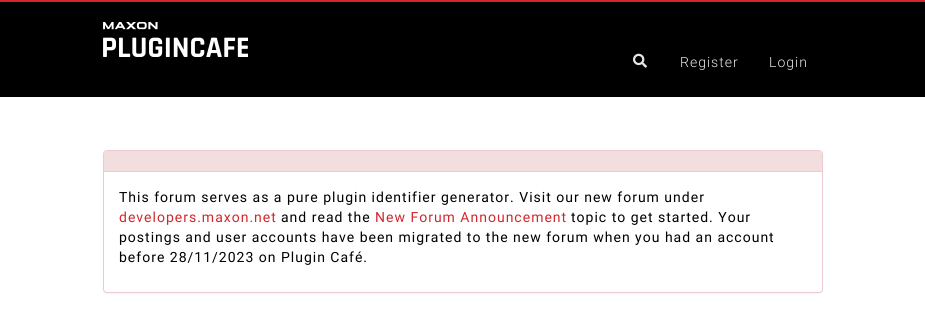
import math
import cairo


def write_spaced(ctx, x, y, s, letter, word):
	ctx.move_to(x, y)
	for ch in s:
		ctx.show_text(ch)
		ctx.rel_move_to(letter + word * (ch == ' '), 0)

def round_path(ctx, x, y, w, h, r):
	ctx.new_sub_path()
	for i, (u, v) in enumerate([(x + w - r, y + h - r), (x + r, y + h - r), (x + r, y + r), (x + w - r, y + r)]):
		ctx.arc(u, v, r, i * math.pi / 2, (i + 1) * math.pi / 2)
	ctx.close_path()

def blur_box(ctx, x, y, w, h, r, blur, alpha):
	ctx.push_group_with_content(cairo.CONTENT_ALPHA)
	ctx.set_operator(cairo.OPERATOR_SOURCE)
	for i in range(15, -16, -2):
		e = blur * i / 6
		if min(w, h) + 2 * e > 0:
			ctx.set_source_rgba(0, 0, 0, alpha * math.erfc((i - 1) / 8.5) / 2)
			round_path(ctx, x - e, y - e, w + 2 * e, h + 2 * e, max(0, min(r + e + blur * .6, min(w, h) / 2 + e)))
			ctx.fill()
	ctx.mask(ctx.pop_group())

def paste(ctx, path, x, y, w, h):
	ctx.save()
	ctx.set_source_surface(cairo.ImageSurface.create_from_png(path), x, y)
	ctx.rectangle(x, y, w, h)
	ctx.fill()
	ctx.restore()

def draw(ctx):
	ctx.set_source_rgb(1, 1, 1)
	ctx.paint()
	ctx.set_source_rgb(0, 0, 0)
	ctx.rectangle(0, 2, 925, 95)
	ctx.fill()
	ctx.set_source_rgb(0.82, 0.153, 0.173)
	ctx.rectangle(0, 0, 925, 2)
	ctx.fill()
	paste(ctx, 'media/1.png', 103, 22, 145, 35)
	paste(ctx, 'media/2.png', 633, 53, 14, 15)
	ctx.select_font_face('Roboto Light')
	ctx.set_font_size(14)
	ctx.set_source_rgb(0.902, 0.902, 0.902)
	write_spaced(ctx, 680, 67, 'Register', 1, 0)
	write_spaced(ctx, 769, 67, 'Login', 1, 0)
	ctx.set_source_rgb(0, 0, 0)
	blur_box(ctx, 103, 151, 720, 143, 4, 0.5, 0.05)
	ctx.set_source_rgb(1, 1, 1)
	round_path(ctx, 103.5, 150.5, 719, 142, 3.5)
	ctx.fill_preserve()
	ctx.set_source_rgb(0.922, 0.8, 0.82)
	ctx.set_line_width(1)
	ctx.stroke()
	ctx.set_source_rgb(0.949, 0.871, 0.871)
	ctx.new_path()
	ctx.move_to(107, 151)
	ctx.line_to(819, 151)
	ctx.curve_to(820.5, 151, 822, 152.5, 822, 154)
	ctx.line_to(822, 172)
	ctx.line_to(104, 172)
	ctx.line_to(104, 154)
	ctx.curve_to(104, 152.5, 105.5, 151, 107, 151)
	ctx.close_path()
	ctx.fill()
	ctx.set_source_rgb(0.922, 0.8, 0.82)
	ctx.rectangle(104, 171, 718, 1)
	ctx.fill()
	ctx.select_font_face('Roboto')
	ctx.set_source_rgb(0, 0, 0)
	write_spaced(ctx, 119, 202, 'This forum serves as a pure plugin identifier generator. Visit our new forum under', 1, 0)
	ctx.set_source_rgb(0.82, 0.153, 0.173)
	write_spaced(ctx, 119, 222, 'developers.maxon.net', 1, 0)
	ctx.set_source_rgb(0, 0, 0)
	write_spaced(ctx, 281, 222, 'and read the', 1, 0)
	ctx.set_source_rgb(0.82, 0.153, 0.173)
	write_spaced(ctx, 375, 222, 'New Forum Announcement', 1, 0)
	ctx.set_source_rgb(0, 0, 0)
	for x, y, s in [
		(571, 222, 'topic to get started. Your'),
		(119, 242, 'postings and user accounts have been migrated to the new forum when you had an account'),
		(119, 262, 'before 28/11/2023 on Plugin Café.'),
	]:
		write_spaced(ctx, x, y, s, 1, 0)


surface = cairo.ImageSurface(cairo.FORMAT_RGB24, 925, 318)
ctx = cairo.Context(surface)
options = cairo.FontOptions()
options.set_hint_metrics(cairo.HINT_METRICS_OFF)
options.set_hint_style(cairo.HINT_STYLE_NONE)
ctx.set_font_options(options)
ctx.set_miter_limit(4)
draw(ctx)
surface.write_to_png('image.png')
